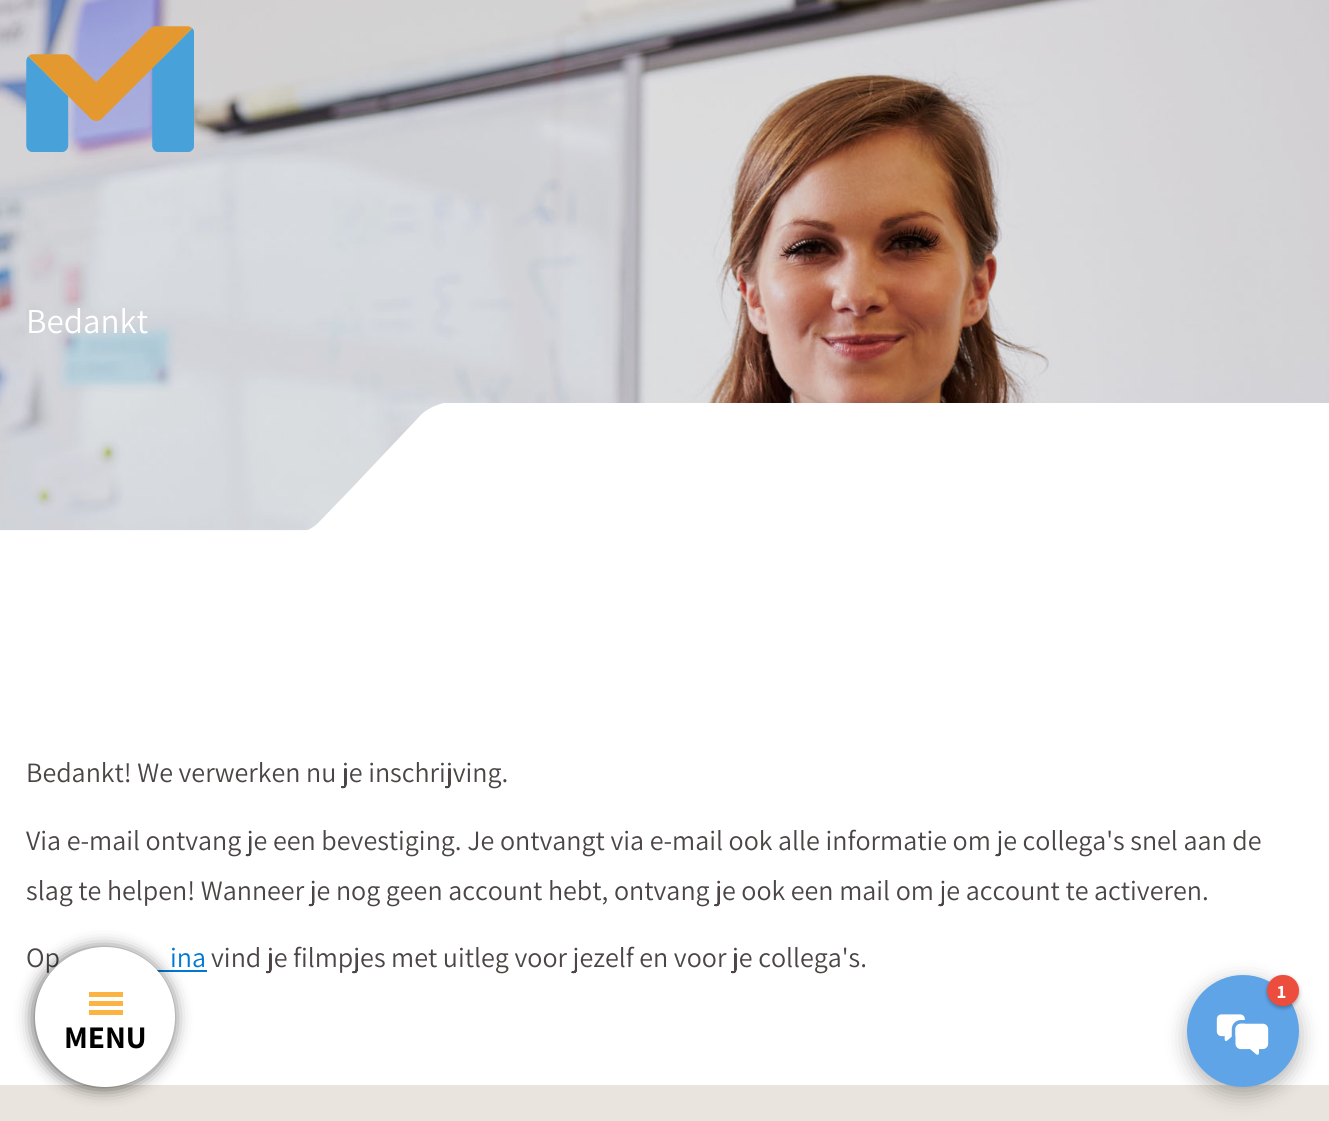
import math
import cairo


def round_path(ctx, x, y, w, h, r):
	ctx.new_sub_path()
	for i, (u, v) in enumerate([(x + w - r, y + h - r), (x + r, y + h - r), (x + r, y + r), (x + w - r, y + r)]):
		ctx.arc(u, v, r, i * math.pi / 2, (i + 1) * math.pi / 2)
	ctx.close_path()

def blur_box(ctx, x, y, w, h, r, blur, alpha):
	ctx.push_group_with_content(cairo.CONTENT_ALPHA)
	ctx.set_operator(cairo.OPERATOR_SOURCE)
	for i in range(15, -16, -2):
		e = blur * i / 6
		if min(w, h) + 2 * e > 0:
			ctx.set_source_rgba(0, 0, 0, alpha * math.erfc((i - 1) / 8.5) / 2)
			round_path(ctx, x - e, y - e, w + 2 * e, h + 2 * e, max(0, min(r + e + blur * .6, min(w, h) / 2 + e)))
			ctx.fill()
	ctx.mask(ctx.pop_group())

def paste(ctx, path, x, y, w, h):
	ctx.save()
	ctx.set_source_surface(cairo.ImageSurface.create_from_png(path), x, y)
	ctx.rectangle(x, y, w, h)
	ctx.fill()
	ctx.restore()

def draw(ctx):
	ctx.set_source_rgb(1, 1, 1)
	ctx.paint()
	paste(ctx, 'media/2.png', 0, 0, 1329, 531)
	paste(ctx, 'media/1.png', 26, 26, 168, 126)
	ctx.select_font_face('Assistant ExtraLight')
	ctx.set_font_size(35)
	ctx.set_source_rgb(1, 1, 1)
	ctx.move_to(26, 333)
	ctx.show_text('Bedankt')
	ctx.rectangle(443, 403, 886, 128)
	ctx.fill()
	ctx.save()
	ctx.rectangle(278, 403, 165, 129)
	ctx.clip()
	ctx.new_path()
	ctx.move_to(-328, 535)
	ctx.line_to(279, 535)
	ctx.curve_to(279, 535, 304, 537, 318, 523)
	ctx.line_to(349, 491)
	ctx.line_to(418, 418)
	ctx.curve_to(418, 418, 430, 401, 461, 401)
	ctx.line_to(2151, 401)
	ctx.line_to(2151, 586)
	ctx.line_to(-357, 586)
	ctx.line_to(-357, 535)
	ctx.close_path()
	ctx.fill()
	ctx.restore()
	ctx.set_font_size(28)
	ctx.set_source_rgb(0.294, 0.271, 0.271)
	for x, y, s in [
		(26, 782, 'Bedankt! We verwerken nu je inschrijving.'),
		(26, 850, 'Via e-mail ontvang je een bevestiging. Je ontvangt via e-mail ook alle informatie om je collega\'s snel aan de'),
		(26, 900, 'slag te helpen! Wanneer je nog geen account hebt, ontvang je ook een mail om je account te activeren.'),
		(26, 967, 'Op'),
	]:
		ctx.move_to(x, y)
		ctx.show_text(s)
	ctx.set_source_rgb(0, 0.471, 0.831)
	ctx.move_to(170, 967)
	ctx.show_text('ina')
	ctx.rectangle(156, 970, 51, 2)
	ctx.fill()
	ctx.set_source_rgb(0.294, 0.271, 0.271)
	ctx.move_to(211, 967)
	ctx.show_text('vind je filmpjes met uitleg voor jezelf en voor je collega\'s.')
	ctx.set_source_rgb(0.914, 0.894, 0.867)
	ctx.rectangle(0, 1085, 1329, 36)
	ctx.fill()
	ctx.set_source_rgb(0, 0, 0)
	blur_box(ctx, 35, 950, 137, 137, 68.5, 9, 0.75)
	ctx.set_source_rgb(1, 1, 1)
	ctx.arc(105, 1017, 70, 0, 2 * math.pi)
	ctx.fill()
	ctx.set_source_rgb(0.988, 0.702, 0.255)
	ctx.rectangle(89, 992, 34, 5)
	ctx.rectangle(89, 1001, 34, 5)
	ctx.rectangle(89, 1010, 34, 5)
	ctx.fill()
	ctx.select_font_face('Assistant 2 ExtraLight')
	ctx.set_font_size(31.5)
	ctx.set_source_rgb(0, 0, 0)
	ctx.move_to(64, 1048)
	ctx.show_text('MENU')
	ctx.set_source_rgb(0, 0, 0)
	blur_box(ctx, 1187, 982, 112, 112, 56, 10.5, 0.3)
	ctx.set_source_rgb(0.376, 0.643, 0.91)
	ctx.arc(1243, 1031, 56, 0, 2 * math.pi)
	ctx.fill()
	paste(ctx, 'media/3.png', 1216, 1014, 53, 41)
	ctx.set_source_rgb(0, 0, 0)
	blur_box(ctx, 1267, 977, 32, 31, 15.5, 2, 0.3)
	ctx.set_source_rgb(0.922, 0.302, 0.239)
	round_path(ctx, 1267, 975, 32, 31, 15.5)
	ctx.fill()
	ctx.set_font_size(19)
	ctx.set_source_rgb(1, 1, 1)
	ctx.move_to(1277, 998)
	ctx.show_text('1')


surface = cairo.ImageSurface(cairo.FORMAT_RGB24, 1329, 1121)
ctx = cairo.Context(surface)
options = cairo.FontOptions()
options.set_hint_metrics(cairo.HINT_METRICS_OFF)
options.set_hint_style(cairo.HINT_STYLE_NONE)
ctx.set_font_options(options)
ctx.set_miter_limit(4)
draw(ctx)
surface.write_to_png('image.png')
